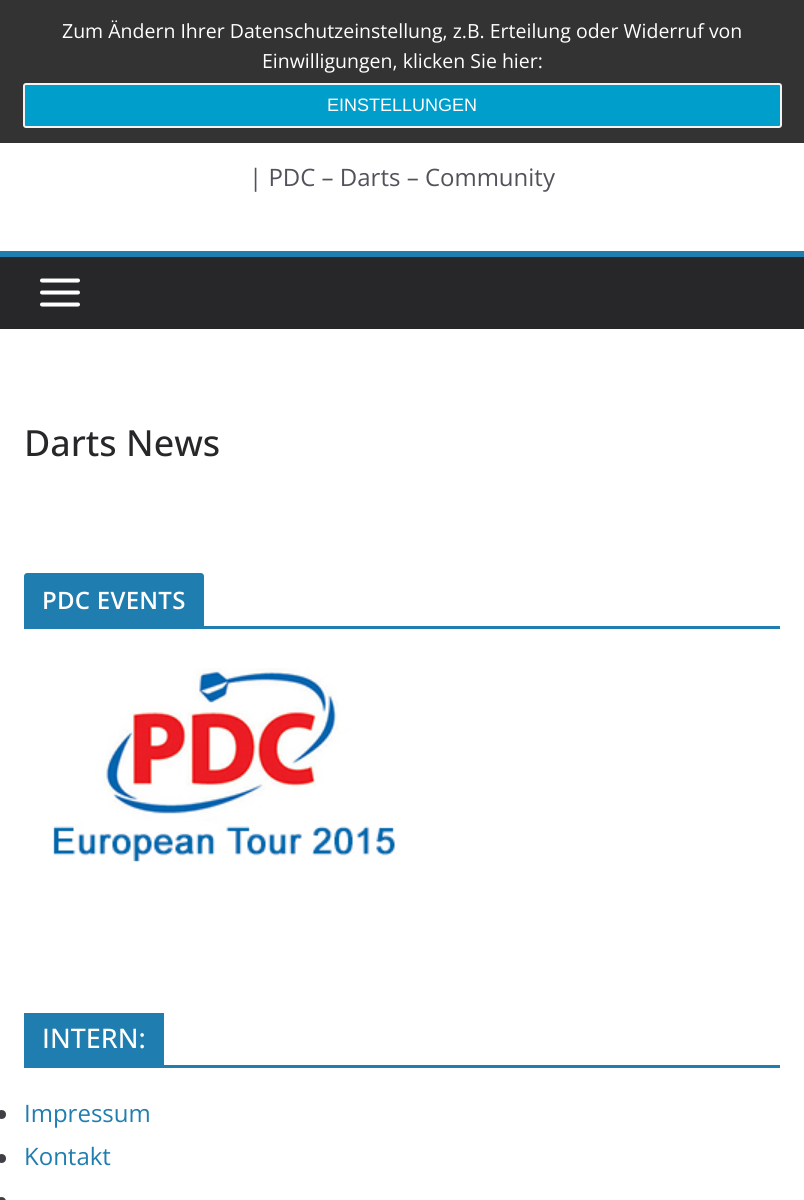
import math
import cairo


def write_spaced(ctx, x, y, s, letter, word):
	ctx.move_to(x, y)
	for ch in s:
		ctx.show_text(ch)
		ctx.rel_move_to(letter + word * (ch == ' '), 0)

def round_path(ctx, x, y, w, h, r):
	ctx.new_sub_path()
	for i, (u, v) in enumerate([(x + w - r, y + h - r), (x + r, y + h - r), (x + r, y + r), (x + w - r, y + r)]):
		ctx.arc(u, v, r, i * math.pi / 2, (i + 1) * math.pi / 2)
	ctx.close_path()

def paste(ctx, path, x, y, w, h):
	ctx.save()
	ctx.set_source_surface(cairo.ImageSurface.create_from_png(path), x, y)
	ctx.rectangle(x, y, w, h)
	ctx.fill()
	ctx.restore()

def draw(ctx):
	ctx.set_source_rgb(1, 1, 1)
	ctx.paint()
	ctx.set_source_rgb(0.2, 0.2, 0.2)
	ctx.rectangle(0, 0, 804, 143)
	ctx.fill()
	ctx.select_font_face('Open Sans')
	ctx.set_font_size(19.5)
	ctx.set_source_rgb(1, 1, 1)
	ctx.move_to(62, 38)
	ctx.show_text('Zum Ändern Ihrer Datenschutzeinstellung, z.B. Erteilung oder Widerruf von')
	ctx.move_to(262, 68)
	ctx.show_text('Einwilligungen, klicken Sie hier:')
	ctx.set_source_rgb(0, 0.62, 0.796)
	round_path(ctx, 24, 84, 757, 43, 2)
	ctx.fill_preserve()
	ctx.set_source_rgb(0.953, 0.953, 0.953)
	ctx.stroke()
	ctx.select_font_face('Liberation Sans')
	ctx.set_font_size(18)
	ctx.set_source_rgb(1, 1, 1)
	ctx.move_to(327, 111)
	ctx.show_text('EINSTELLUNGEN')
	ctx.select_font_face('Open Sans')
	ctx.set_font_size(24)
	ctx.set_source_rgb(0.322, 0.322, 0.357)
	ctx.move_to(249, 186)
	ctx.show_text('| PDC – Darts – Community')
	ctx.set_source_rgb(0.153, 0.153, 0.165)
	ctx.rectangle(0, 257, 804, 72)
	ctx.fill()
	ctx.set_source_rgb(0.125, 0.49, 0.686)
	ctx.rectangle(0, 251, 804, 6)
	ctx.fill()
	paste(ctx, 'media/1.png', 40, 278, 40, 29)
	ctx.select_font_face('Open Sans Medium')
	ctx.set_font_size(36)
	ctx.set_source_rgb(0.153, 0.153, 0.165)
	ctx.move_to(24, 456)
	ctx.show_text('Darts News')
	ctx.set_source_rgb(0.125, 0.49, 0.686)
	ctx.rectangle(24, 626, 756, 3)
	ctx.fill()
	ctx.new_path()
	ctx.move_to(27, 573)
	ctx.line_to(201, 573)
	ctx.curve_to(202.5, 573, 204, 574.5, 204, 576)
	ctx.line_to(204, 626)
	ctx.line_to(24, 626)
	ctx.line_to(24, 576)
	ctx.curve_to(24, 574.5, 25.5, 573, 27, 573)
	ctx.close_path()
	ctx.fill()
	ctx.select_font_face('Open Sans SemiBold')
	ctx.set_font_size(24)
	ctx.set_source_rgb(1, 1, 1)
	write_spaced(ctx, 42, 609, 'PDC EVENTS', 0.25, 0)
	paste(ctx, 'media/2.png', 53, 668, 342, 194)
	ctx.set_source_rgb(0.125, 0.49, 0.686)
	ctx.rectangle(24, 1065, 756, 3)
	ctx.fill()
	ctx.rectangle(24, 1013, 140, 52)
	ctx.fill()
	ctx.select_font_face('Open Sans Medium')
	ctx.set_font_size(27)
	ctx.set_source_rgb(1, 1, 1)
	ctx.move_to(42, 1048)
	ctx.show_text('INTERN:')
	ctx.set_source_rgb(0.247, 0.247, 0.275)
	ctx.new_path()
	ctx.arc(1.5, 1114.5, 4.5, 0, 2 * math.pi)
	ctx.fill()
	ctx.select_font_face('Open Sans')
	ctx.set_font_size(24)
	ctx.set_source_rgb(0.125, 0.49, 0.686)
	ctx.move_to(24, 1122)
	ctx.show_text('Impressum')
	ctx.set_source_rgb(0.247, 0.247, 0.275)
	ctx.new_path()
	ctx.arc(1.5, 1158.5, 4.5, 0, 2 * math.pi)
	ctx.fill()
	ctx.set_source_rgb(0.125, 0.49, 0.686)
	ctx.move_to(24, 1165)
	ctx.show_text('Kontakt')
	ctx.set_source_rgb(0.247, 0.247, 0.275)
	round_path(ctx, -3, 1197, 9, 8, 4.5)
	ctx.fill()


surface = cairo.ImageSurface(cairo.FORMAT_RGB24, 804, 1200)
ctx = cairo.Context(surface)
options = cairo.FontOptions()
options.set_hint_metrics(cairo.HINT_METRICS_OFF)
options.set_hint_style(cairo.HINT_STYLE_NONE)
ctx.set_font_options(options)
ctx.set_miter_limit(4)
draw(ctx)
surface.write_to_png('image.png')
